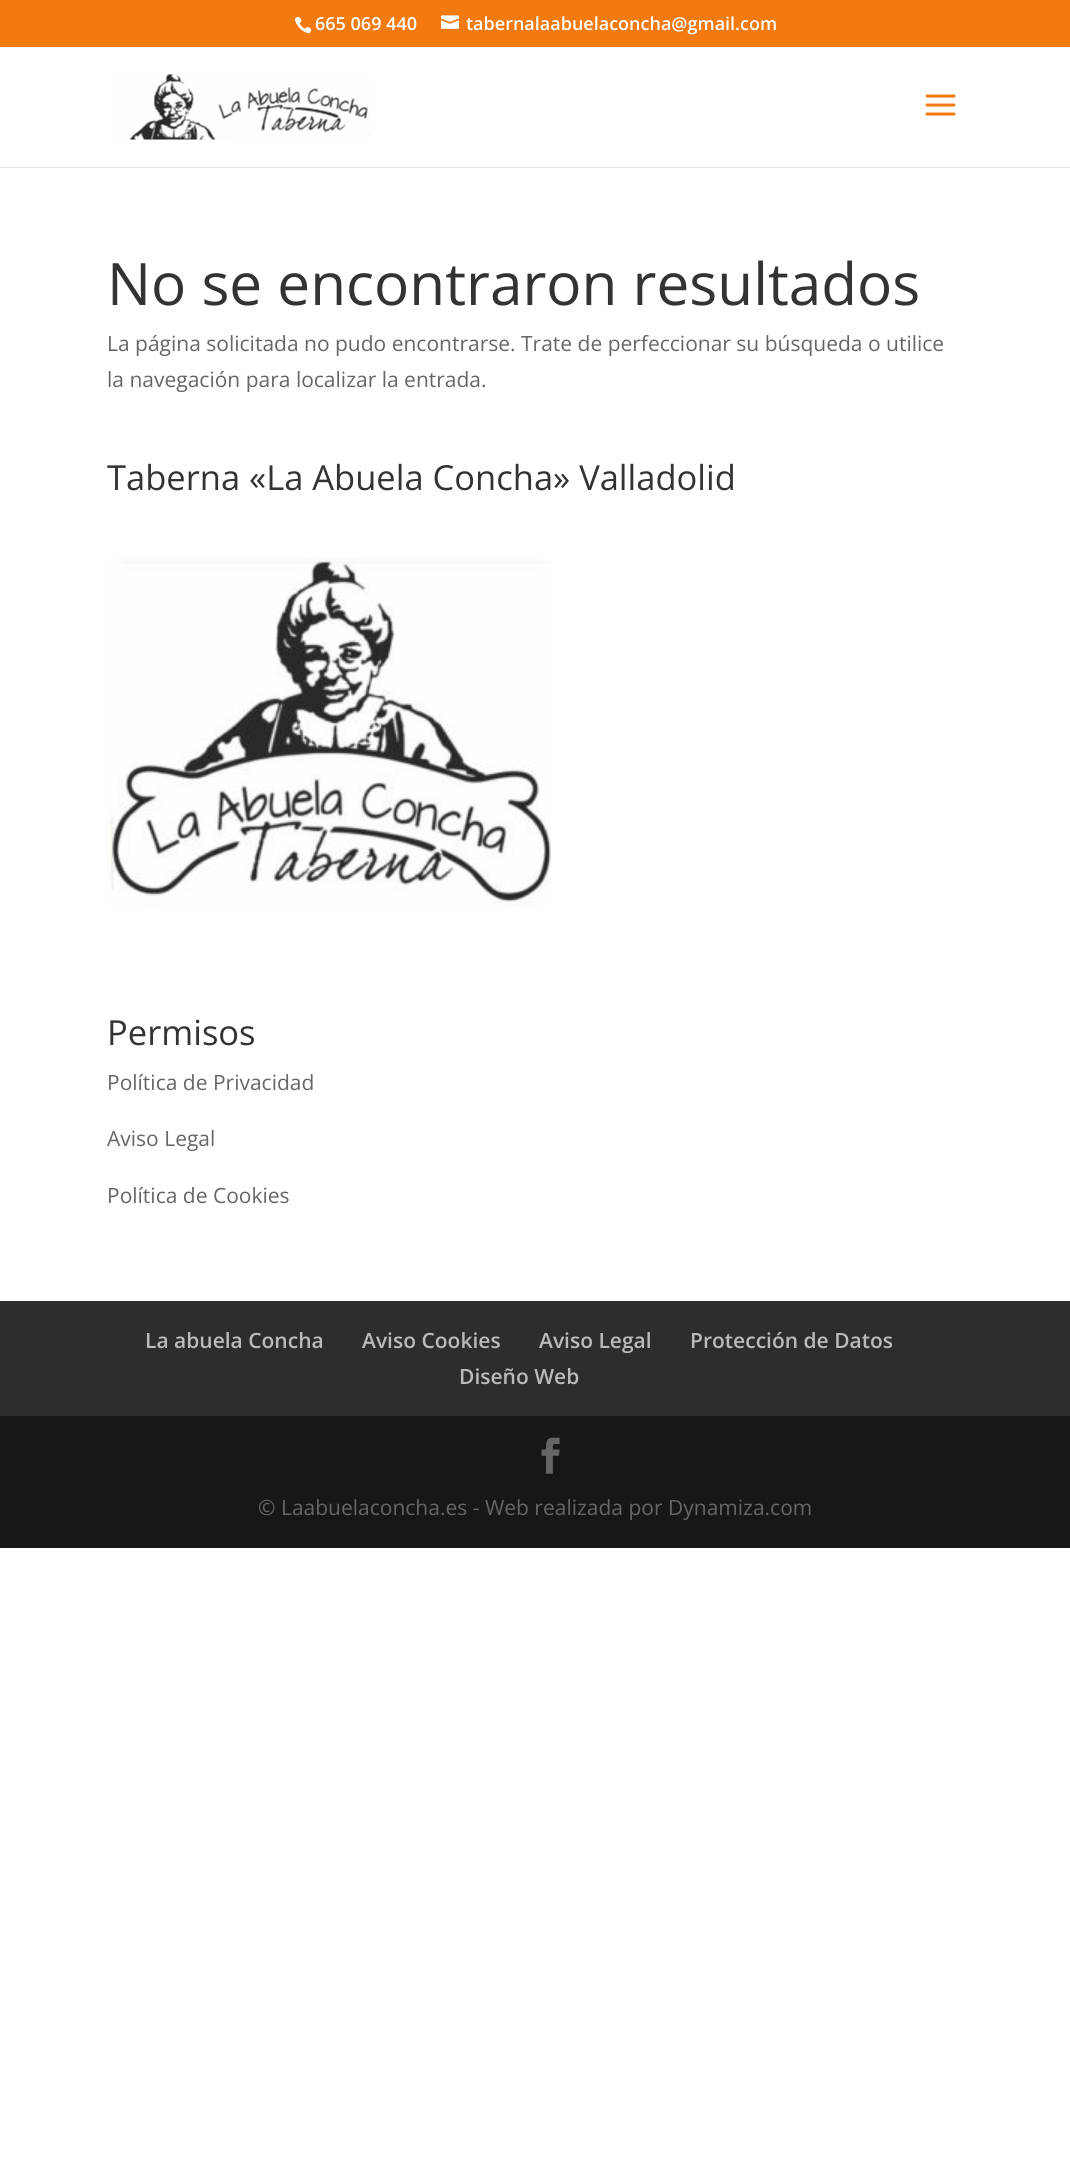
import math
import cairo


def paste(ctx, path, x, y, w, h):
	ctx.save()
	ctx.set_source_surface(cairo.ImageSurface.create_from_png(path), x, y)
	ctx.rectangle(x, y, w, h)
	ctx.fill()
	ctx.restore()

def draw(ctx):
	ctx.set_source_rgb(1, 1, 1)
	ctx.paint()
	ctx.set_source_rgb(0.953, 0.478, 0.059)
	ctx.rectangle(0, 0, 1070, 47)
	ctx.fill()
	paste(ctx, 'media/1.png', 294, 16, 18, 18)
	ctx.select_font_face('Open Sans SemiBold')
	ctx.set_font_size(18)
	ctx.set_source_rgb(1, 1, 1)
	ctx.move_to(315, 30)
	ctx.show_text('665 069 440')
	paste(ctx, 'media/2.png', 441, 15, 18, 14)
	ctx.move_to(466, 30)
	ctx.show_text('tabernalaabuelaconcha@gmail.com')
	ctx.set_source_rgb(0.902, 0.902, 0.902)
	ctx.rectangle(0, 167, 1070, 1)
	ctx.fill()
	paste(ctx, 'media/3.png', 112, 73, 258, 67)
	paste(ctx, 'media/4.png', 925, 94, 31, 22)
	ctx.select_font_face('Open Sans')
	ctx.set_font_size(58.5)
	ctx.set_source_rgb(0.2, 0.2, 0.2)
	ctx.move_to(107, 305)
	ctx.show_text('No se encontraron resultados')
	ctx.set_font_size(21)
	ctx.set_source_rgb(0.4, 0.4, 0.4)
	ctx.move_to(107, 351)
	ctx.show_text('La página solicitada no pudo encontrarse. Trate de perfeccionar su búsqueda o utilice')
	ctx.move_to(107, 387)
	ctx.show_text('la navegación para localizar la entrada.')
	ctx.set_font_size(34.5)
	ctx.set_source_rgb(0.2, 0.2, 0.2)
	ctx.move_to(107, 490)
	ctx.show_text('Taberna «La Abuela Concha» Valladolid')
	paste(ctx, 'media/5.png', 106, 558, 445, 348)
	ctx.move_to(107, 1045)
	ctx.show_text('Permisos')
	ctx.set_font_size(21)
	ctx.set_source_rgb(0.4, 0.4, 0.4)
	for x, y, s in [
		(107, 1090, 'Política de Privacidad'),
		(107, 1146, 'Aviso Legal'),
		(107, 1203, 'Política de Cookies'),
	]:
		ctx.move_to(x, y)
		ctx.show_text(s)
	ctx.set_source_rgb(0.176, 0.176, 0.176)
	ctx.rectangle(0, 1301, 1070, 115)
	ctx.fill()
	ctx.select_font_face('Open Sans SemiBold')
	ctx.set_source_rgb(0.733, 0.733, 0.733)
	for x, y, s in [
		(145, 1348, 'La abuela Concha'),
		(362, 1348, 'Aviso Cookies'),
		(539, 1348, 'Aviso Legal'),
		(690, 1348, 'Protección de Datos'),
		(459, 1384, 'Diseño Web'),
	]:
		ctx.move_to(x, y)
		ctx.show_text(s)
	ctx.set_source_rgb(0.09, 0.09, 0.09)
	ctx.rectangle(0, 1416, 1070, 132)
	ctx.fill()
	paste(ctx, 'media/6.png', 541, 1437, 19, 37)
	ctx.select_font_face('Open Sans')
	ctx.set_source_rgb(0.4, 0.4, 0.4)
	ctx.move_to(258, 1515)
	ctx.show_text('© Laabuelaconcha.es - Web realizada por Dynamiza.com')


surface = cairo.ImageSurface(cairo.FORMAT_RGB24, 1070, 2167)
ctx = cairo.Context(surface)
options = cairo.FontOptions()
options.set_hint_metrics(cairo.HINT_METRICS_OFF)
options.set_hint_style(cairo.HINT_STYLE_NONE)
ctx.set_font_options(options)
ctx.set_miter_limit(4)
draw(ctx)
surface.write_to_png('image.png')
